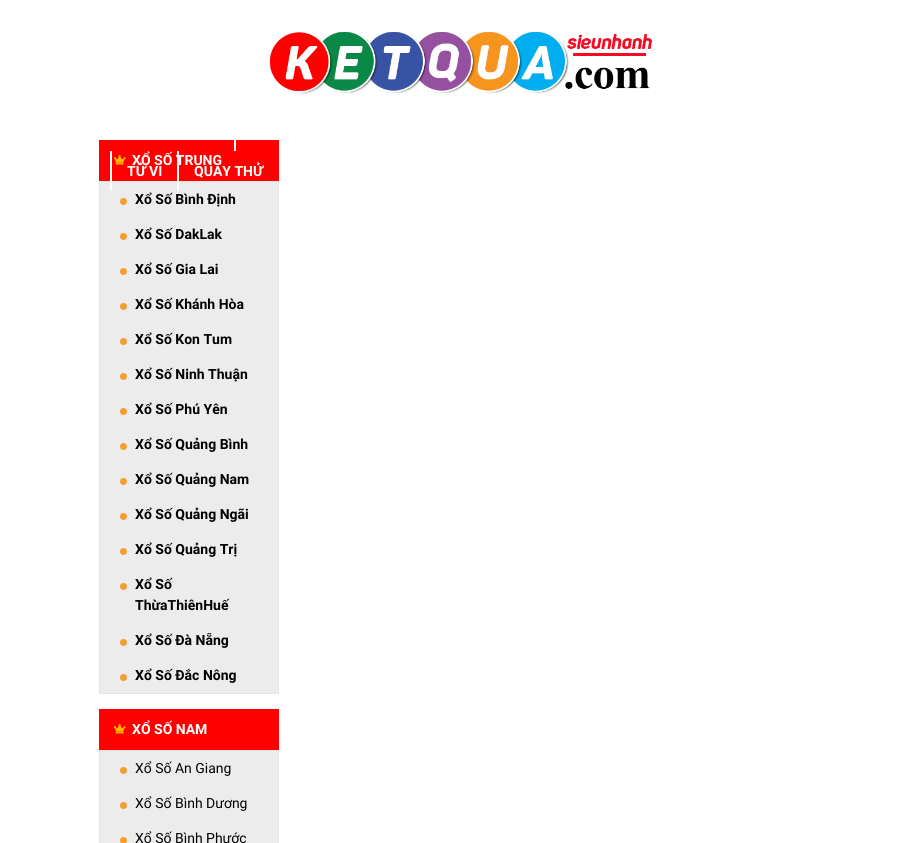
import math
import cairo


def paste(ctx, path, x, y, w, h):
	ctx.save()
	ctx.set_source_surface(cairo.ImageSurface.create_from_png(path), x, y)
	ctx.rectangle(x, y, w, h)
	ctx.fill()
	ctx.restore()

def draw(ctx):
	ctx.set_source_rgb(1, 1, 1)
	ctx.paint()
	ctx.set_source_rgb(1, 0, 0)
	ctx.rectangle(99, 140, 180, 41)
	ctx.fill()
	paste(ctx, 'media/1.png', 114, 155, 12, 10)
	ctx.select_font_face('Roboto', cairo.FONT_SLANT_NORMAL, cairo.FONT_WEIGHT_BOLD)
	ctx.set_font_size(14)
	ctx.set_source_rgb(1, 1, 1)
	ctx.move_to(132, 165)
	ctx.show_text('XỔ SỐ TRUNG')
	ctx.set_source_rgb(0.925, 0.925, 0.925)
	ctx.rectangle(99.5, 181.5, 179, 512)
	ctx.fill_preserve()
	ctx.set_source_rgb(0.894, 0.894, 0.894)
	ctx.set_line_width(1)
	ctx.stroke()
	ctx.set_source_rgb(0.957, 0.62, 0.188)
	ctx.arc(123.5, 201.5, 3.5, 0, 2 * math.pi)
	ctx.fill()
	ctx.set_source_rgb(0, 0, 0)
	ctx.move_to(135, 204)
	ctx.show_text('Xổ Số Bình Định')
	ctx.set_source_rgb(0.957, 0.62, 0.188)
	ctx.new_path()
	ctx.arc(123.5, 236.5, 3.5, 0, 2 * math.pi)
	ctx.fill()
	ctx.set_source_rgb(0, 0, 0)
	ctx.move_to(135, 239)
	ctx.show_text('Xổ Số DakLak')
	ctx.set_source_rgb(0.957, 0.62, 0.188)
	ctx.new_path()
	ctx.arc(123.5, 271.5, 3.5, 0, 2 * math.pi)
	ctx.fill()
	ctx.set_source_rgb(0, 0, 0)
	ctx.move_to(135, 274)
	ctx.show_text('Xổ Số Gia Lai')
	ctx.set_source_rgb(0.957, 0.62, 0.188)
	ctx.new_path()
	ctx.arc(123.5, 306.5, 3.5, 0, 2 * math.pi)
	ctx.fill()
	ctx.set_source_rgb(0, 0, 0)
	ctx.move_to(135, 309)
	ctx.show_text('Xổ Số Khánh Hòa')
	ctx.set_source_rgb(0.957, 0.62, 0.188)
	ctx.new_path()
	ctx.arc(123.5, 341.5, 3.5, 0, 2 * math.pi)
	ctx.fill()
	ctx.set_source_rgb(0, 0, 0)
	ctx.move_to(135, 344)
	ctx.show_text('Xổ Số Kon Tum')
	ctx.set_source_rgb(0.957, 0.62, 0.188)
	ctx.new_path()
	ctx.arc(123.5, 376.5, 3.5, 0, 2 * math.pi)
	ctx.fill()
	ctx.set_source_rgb(0, 0, 0)
	ctx.move_to(135, 379)
	ctx.show_text('Xổ Số Ninh Thuận')
	ctx.set_source_rgb(0.957, 0.62, 0.188)
	ctx.new_path()
	ctx.arc(123.5, 411.5, 3.5, 0, 2 * math.pi)
	ctx.fill()
	ctx.set_source_rgb(0, 0, 0)
	ctx.move_to(135, 414)
	ctx.show_text('Xổ Số Phú Yên')
	ctx.set_source_rgb(0.957, 0.62, 0.188)
	ctx.new_path()
	ctx.arc(123.5, 446.5, 3.5, 0, 2 * math.pi)
	ctx.fill()
	ctx.set_source_rgb(0, 0, 0)
	ctx.move_to(135, 449)
	ctx.show_text('Xổ Số Quảng Bình')
	ctx.set_source_rgb(0.957, 0.62, 0.188)
	ctx.new_path()
	ctx.arc(123.5, 481.5, 3.5, 0, 2 * math.pi)
	ctx.fill()
	ctx.set_source_rgb(0, 0, 0)
	ctx.move_to(135, 484)
	ctx.show_text('Xổ Số Quảng Nam')
	ctx.set_source_rgb(0.957, 0.62, 0.188)
	ctx.new_path()
	ctx.arc(123.5, 516.5, 3.5, 0, 2 * math.pi)
	ctx.fill()
	ctx.set_source_rgb(0, 0, 0)
	ctx.move_to(135, 519)
	ctx.show_text('Xổ Số Quảng Ngãi')
	ctx.set_source_rgb(0.957, 0.62, 0.188)
	ctx.new_path()
	ctx.arc(123.5, 551.5, 3.5, 0, 2 * math.pi)
	ctx.fill()
	ctx.set_source_rgb(0, 0, 0)
	ctx.move_to(135, 554)
	ctx.show_text('Xổ Số Quảng Trị')
	ctx.set_source_rgb(0.957, 0.62, 0.188)
	ctx.new_path()
	ctx.arc(123.5, 586.5, 3.5, 0, 2 * math.pi)
	ctx.fill()
	ctx.set_source_rgb(0, 0, 0)
	ctx.move_to(135, 589)
	ctx.show_text('Xổ Số')
	ctx.move_to(135, 610)
	ctx.show_text('ThừaThiênHuế')
	ctx.set_source_rgb(0.957, 0.62, 0.188)
	ctx.new_path()
	ctx.arc(123.5, 642.5, 3.5, 0, 2 * math.pi)
	ctx.fill()
	ctx.set_source_rgb(0, 0, 0)
	ctx.move_to(135, 645)
	ctx.show_text('Xổ Số Đà Nẵng')
	ctx.set_source_rgb(0.957, 0.62, 0.188)
	ctx.new_path()
	ctx.arc(123.5, 677.5, 3.5, 0, 2 * math.pi)
	ctx.fill()
	ctx.set_source_rgb(0, 0, 0)
	ctx.move_to(135, 680)
	ctx.show_text('Xổ Số Đắc Nông')
	ctx.set_source_rgb(1, 0, 0)
	ctx.rectangle(99, 709, 180, 41)
	ctx.fill()
	paste(ctx, 'media/1.png', 114, 724, 12, 10)
	ctx.set_source_rgb(1, 1, 1)
	ctx.move_to(132, 734)
	ctx.show_text('XỔ SỐ NAM')
	ctx.set_source_rgb(0.925, 0.925, 0.925)
	ctx.rectangle(99.5, 750.5, 179, 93)
	ctx.fill_preserve()
	ctx.set_source_rgb(0.894, 0.894, 0.894)
	ctx.stroke()
	ctx.set_source_rgb(0.957, 0.62, 0.188)
	ctx.arc(123.5, 770.5, 3.5, 0, 2 * math.pi)
	ctx.fill()
	ctx.select_font_face('Roboto')
	ctx.set_source_rgb(0, 0, 0)
	ctx.move_to(135, 773)
	ctx.show_text('Xổ Số An Giang')
	ctx.set_source_rgb(0.957, 0.62, 0.188)
	ctx.new_path()
	ctx.arc(123.5, 805.5, 3.5, 0, 2 * math.pi)
	ctx.fill()
	ctx.set_source_rgb(0, 0, 0)
	ctx.move_to(135, 808)
	ctx.show_text('Xổ Số Bình Dương')
	ctx.set_source_rgb(0.957, 0.62, 0.188)
	ctx.new_path()
	ctx.arc(123.5, 840.5, 3.5, 0, 2 * math.pi)
	ctx.fill()
	ctx.set_source_rgb(0, 0, 0)
	ctx.move_to(135, 843)
	ctx.show_text('Xổ Số Bình Phước')
	paste(ctx, 'media/2.png', 270, 32, 382, 62)
	ctx.set_source_rgb(1, 1, 1)
	ctx.rectangle(234, 140, 2, 11)
	ctx.rectangle(110, 151, 2, 40)
	ctx.rectangle(177, 151, 2, 40)
	ctx.fill()
	ctx.select_font_face('Roboto', cairo.FONT_SLANT_NORMAL, cairo.FONT_WEIGHT_BOLD)
	ctx.move_to(127, 176)
	ctx.show_text('TỬ VI')
	ctx.move_to(194, 176)
	ctx.show_text('QUAY THỬ')


surface = cairo.ImageSurface(cairo.FORMAT_RGB24, 917, 843)
ctx = cairo.Context(surface)
options = cairo.FontOptions()
options.set_hint_metrics(cairo.HINT_METRICS_OFF)
options.set_hint_style(cairo.HINT_STYLE_NONE)
ctx.set_font_options(options)
ctx.set_miter_limit(4)
draw(ctx)
surface.write_to_png('image.png')
